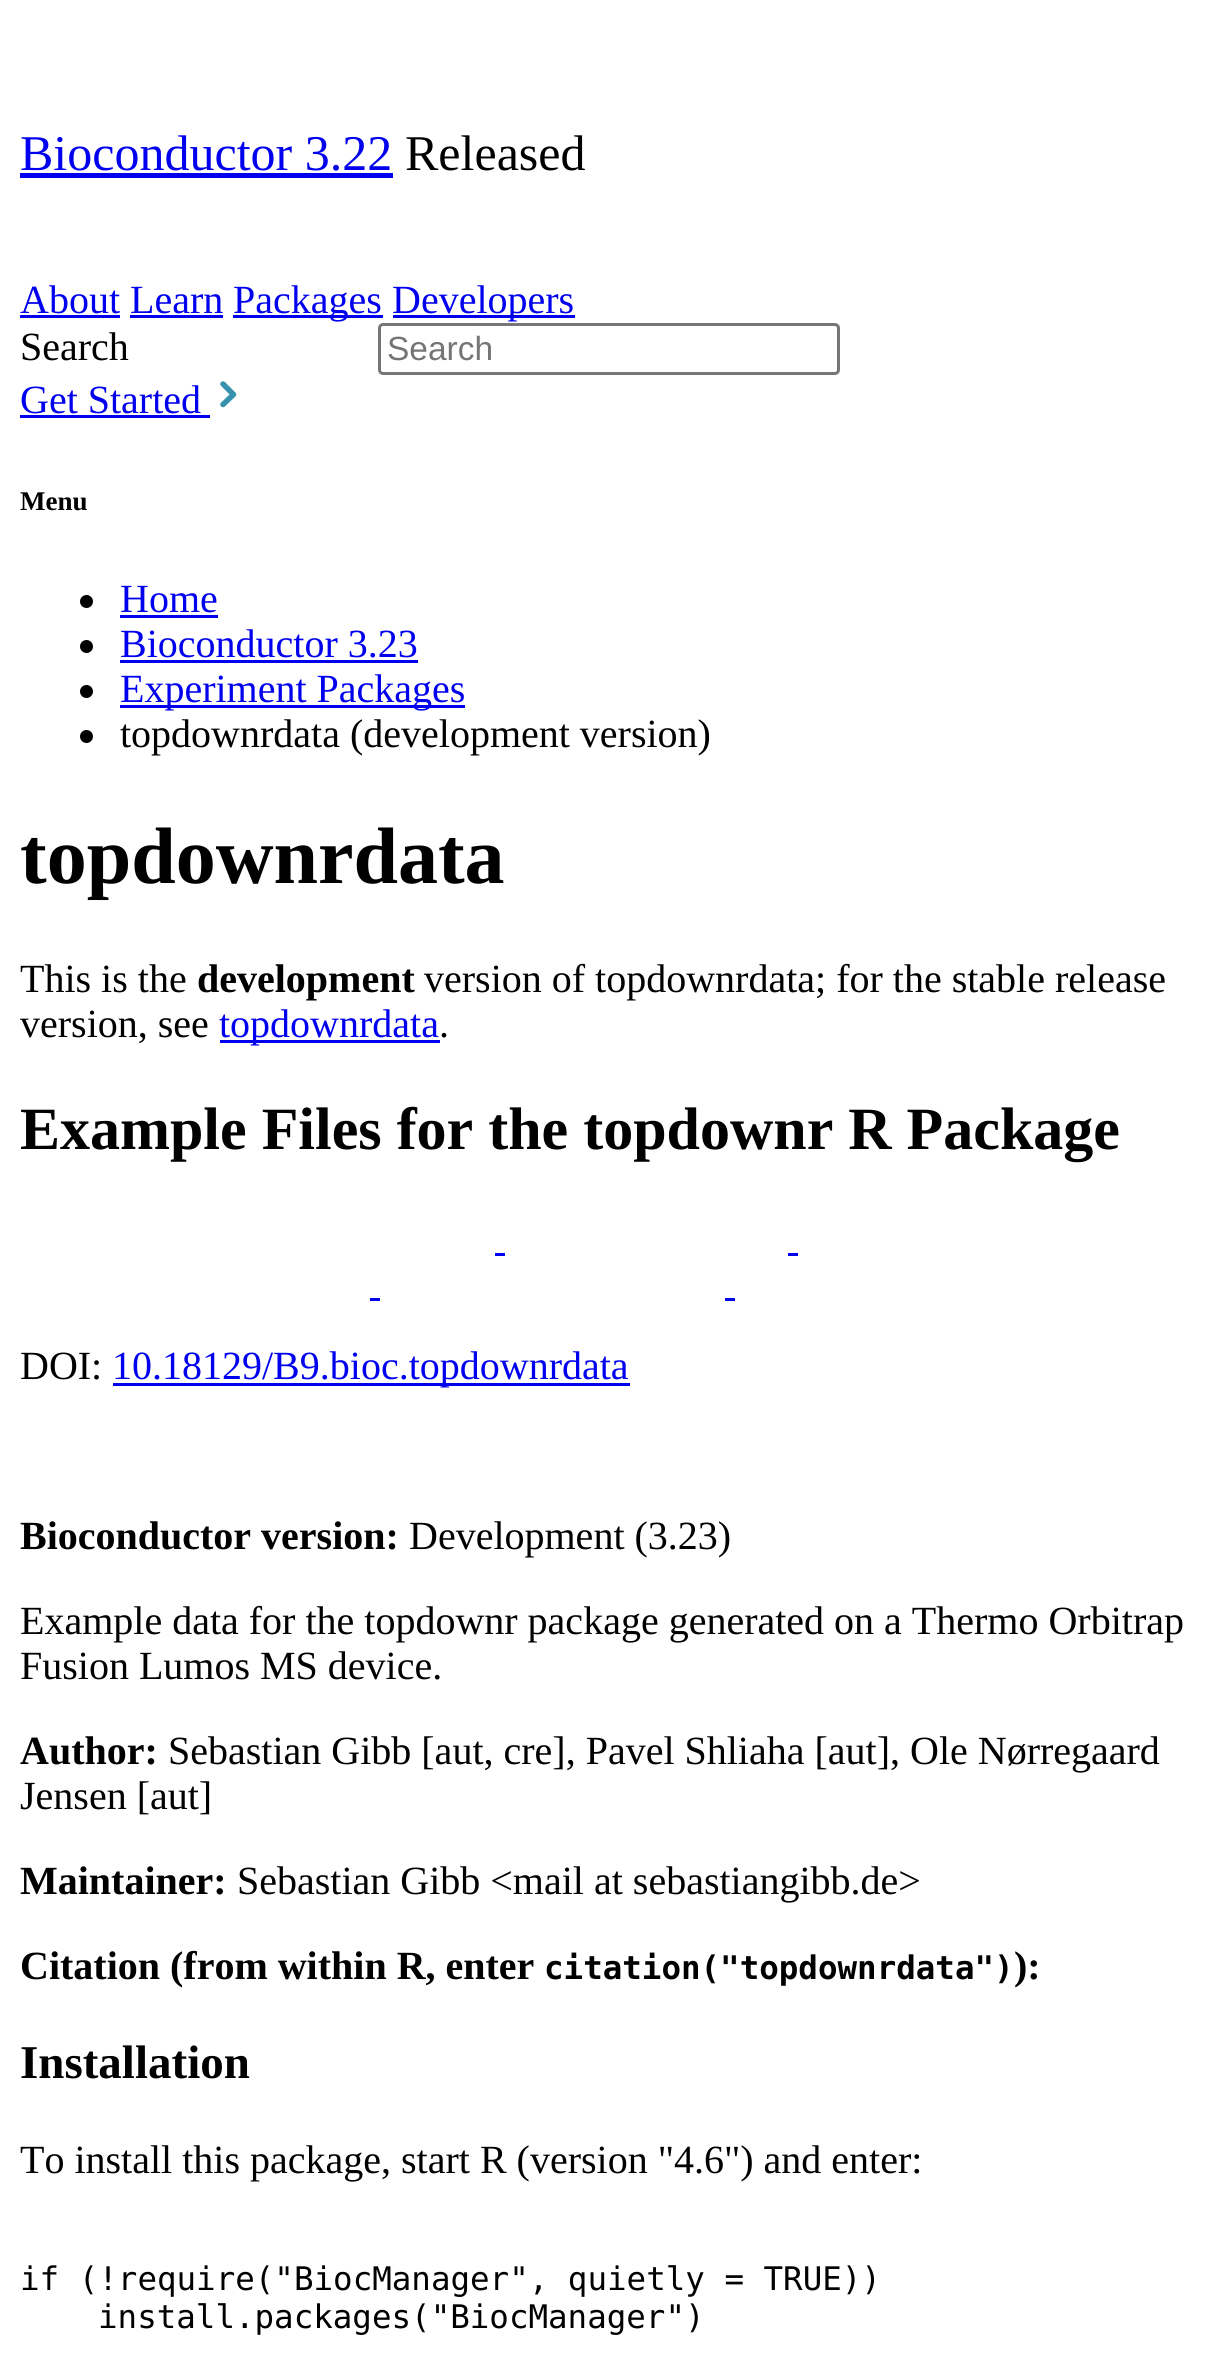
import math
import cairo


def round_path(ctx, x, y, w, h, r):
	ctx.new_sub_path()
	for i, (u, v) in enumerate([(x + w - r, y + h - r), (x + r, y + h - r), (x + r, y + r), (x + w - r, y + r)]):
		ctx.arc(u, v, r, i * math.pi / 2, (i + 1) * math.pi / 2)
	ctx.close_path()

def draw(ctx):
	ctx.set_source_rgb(1, 1, 1)
	ctx.paint()
	ctx.select_font_face('Liberation Serif')
	ctx.set_font_size(50)
	ctx.set_source_rgb(0, 0, 0.933)
	ctx.move_to(20, 170)
	ctx.show_text('Bioconductor 3.22')
	ctx.rectangle(20, 173, 373, 5)
	ctx.fill()
	ctx.set_source_rgb(0, 0, 0)
	ctx.move_to(405, 170)
	ctx.show_text('Released')
	ctx.set_font_size(40)
	ctx.set_source_rgb(0, 0, 0.933)
	ctx.move_to(20, 313)
	ctx.show_text('About Learn')
	ctx.rectangle(20, 315, 100, 3)
	ctx.fill()
	ctx.rectangle(233, 315, 150, 3)
	ctx.fill()
	ctx.move_to(233, 313)
	ctx.show_text('Packages')
	ctx.rectangle(393, 315, 182, 3)
	ctx.fill()
	ctx.move_to(392, 313)
	ctx.show_text('Developers')
	ctx.rectangle(130, 315, 93, 3)
	ctx.fill()
	ctx.set_source_rgb(0, 0, 0)
	ctx.move_to(20, 360)
	ctx.show_text('Search')
	round_path(ctx, 379.5, 324.5, 459, 49, 3.5)
	ctx.set_source_rgb(0.463, 0.463, 0.463)
	ctx.set_line_width(3)
	ctx.stroke()
	ctx.select_font_face('Liberation Sans')
	ctx.set_font_size(33.5)
	ctx.set_source_rgb(0.459, 0.459, 0.459)
	ctx.move_to(387, 360)
	ctx.show_text('Search')
	ctx.select_font_face('Liberation Serif')
	ctx.set_font_size(40)
	ctx.set_source_rgb(0, 0, 0.933)
	ctx.move_to(20, 413)
	ctx.show_text('Get Started')
	ctx.rectangle(20, 415, 190, 3)
	ctx.fill()
	ctx.new_path()
	ctx.move_to(223, 384)
	ctx.line_to(233.5, 394.5)
	ctx.line_to(223, 404.5)
	ctx.set_source_rgb(0.216, 0.573, 0.678)
	ctx.set_line_width(5.5)
	ctx.set_line_cap(cairo.LINE_CAP_ROUND)
	ctx.set_line_join(cairo.LINE_JOIN_ROUND)
	ctx.stroke()
	ctx.select_font_face('Liberation Serif', cairo.FONT_SLANT_NORMAL, cairo.FONT_WEIGHT_BOLD)
	ctx.set_font_size(27)
	ctx.set_source_rgb(0, 0, 0)
	ctx.move_to(20, 510)
	ctx.show_text('Menu')
	ctx.new_path()
	ctx.arc(86.5, 601.5, 6.5, 0, 2 * math.pi)
	ctx.fill()
	ctx.select_font_face('Liberation Serif')
	ctx.set_font_size(40)
	ctx.set_source_rgb(0, 0, 0.933)
	ctx.move_to(120, 612)
	ctx.show_text('Home')
	ctx.rectangle(120, 615, 98, 3)
	ctx.fill()
	ctx.set_source_rgb(0, 0, 0)
	ctx.arc(86.5, 646.5, 6.5, 0, 2 * math.pi)
	ctx.fill()
	ctx.set_source_rgb(0, 0, 0.933)
	ctx.move_to(120, 657)
	ctx.show_text('Bioconductor 3.23')
	ctx.rectangle(120, 660, 298, 3)
	ctx.fill()
	ctx.set_source_rgb(0, 0, 0)
	ctx.arc(86.5, 691.5, 6.5, 0, 2 * math.pi)
	ctx.fill()
	ctx.set_source_rgb(0, 0, 0.933)
	ctx.rectangle(120, 705, 345, 3)
	ctx.fill()
	ctx.move_to(120, 702)
	ctx.show_text('Experiment Packages')
	ctx.set_source_rgb(0, 0, 0)
	ctx.new_path()
	ctx.arc(86.5, 736.5, 6.5, 0, 2 * math.pi)
	ctx.fill()
	ctx.move_to(120, 747)
	ctx.show_text('topdownrdata (development version)')
	ctx.select_font_face('Liberation Serif', cairo.FONT_SLANT_NORMAL, cairo.FONT_WEIGHT_BOLD)
	ctx.set_font_size(80)
	ctx.move_to(20, 883)
	ctx.show_text('topdownrdata')
	ctx.select_font_face('Liberation Serif')
	ctx.set_font_size(40)
	ctx.move_to(20, 992)
	ctx.show_text('This is the')
	ctx.select_font_face('Liberation Serif', cairo.FONT_SLANT_NORMAL, cairo.FONT_WEIGHT_BOLD)
	ctx.move_to(197, 992)
	ctx.show_text('development')
	ctx.select_font_face('Liberation Serif')
	ctx.move_to(424, 992)
	ctx.show_text('version of topdownrdata; for the stable release')
	ctx.move_to(20, 1037)
	ctx.show_text('version, see')
	ctx.set_source_rgb(0, 0, 0.933)
	ctx.rectangle(220, 1040, 220, 3)
	ctx.fill()
	ctx.move_to(219, 1037)
	ctx.show_text('topdownrdata')
	ctx.set_source_rgb(0, 0, 0)
	ctx.move_to(439, 1037)
	ctx.show_text('.')
	ctx.select_font_face('Liberation Serif', cairo.FONT_SLANT_NORMAL, cairo.FONT_WEIGHT_BOLD)
	ctx.set_font_size(60)
	ctx.move_to(20, 1149)
	ctx.show_text('Example Files for the topdownr R Package')
	ctx.set_source_rgb(0, 0, 0.933)
	ctx.rectangle(495, 1253, 10, 3)
	ctx.rectangle(788, 1253, 10, 3)
	ctx.rectangle(370, 1298, 10, 3)
	ctx.rectangle(725, 1298, 10, 3)
	ctx.fill()
	ctx.select_font_face('Liberation Serif')
	ctx.set_font_size(40)
	ctx.set_source_rgb(0, 0, 0)
	ctx.move_to(20, 1379)
	ctx.show_text('DOI:')
	ctx.set_source_rgb(0, 0, 0.933)
	ctx.rectangle(113, 1383, 517, 3)
	ctx.fill()
	ctx.move_to(112, 1379)
	ctx.show_text('10.18129/B9.bioc.topdownrdata')
	ctx.select_font_face('Liberation Serif', cairo.FONT_SLANT_NORMAL, cairo.FONT_WEIGHT_BOLD)
	ctx.set_source_rgb(0, 0, 0)
	ctx.move_to(20, 1549)
	ctx.show_text('Bioconductor version:')
	ctx.select_font_face('Liberation Serif')
	for x, y, s in [
		(409, 1549, 'Development (3.23)'),
		(20, 1634, 'Example data for the topdownr package generated on a Thermo Orbitrap'),
		(20, 1679, 'Fusion Lumos MS device.'),
	]:
		ctx.move_to(x, y)
		ctx.show_text(s)
	ctx.select_font_face('Liberation Serif', cairo.FONT_SLANT_NORMAL, cairo.FONT_WEIGHT_BOLD)
	ctx.move_to(20, 1764)
	ctx.show_text('Author:')
	ctx.select_font_face('Liberation Serif')
	ctx.move_to(168, 1764)
	ctx.show_text('Sebastian Gibb [aut, cre], Pavel Shliaha [aut], Ole Nørregaard')
	ctx.move_to(20, 1809)
	ctx.show_text('Jensen [aut]')
	ctx.select_font_face('Liberation Serif', cairo.FONT_SLANT_NORMAL, cairo.FONT_WEIGHT_BOLD)
	ctx.move_to(20, 1894)
	ctx.show_text('Maintainer:')
	ctx.select_font_face('Liberation Serif')
	ctx.move_to(237, 1894)
	ctx.show_text('Sebastian Gibb <mail at sebastiangibb.de>')
	ctx.select_font_face('Liberation Serif', cairo.FONT_SLANT_NORMAL, cairo.FONT_WEIGHT_BOLD)
	ctx.move_to(20, 1979)
	ctx.show_text('Citation (from within R, enter')
	ctx.select_font_face('DejaVu Sans Mono', cairo.FONT_SLANT_NORMAL, cairo.FONT_WEIGHT_BOLD)
	ctx.set_font_size(32.5)
	ctx.move_to(544, 1979)
	ctx.show_text('citation("topdownrdata")')
	ctx.select_font_face('Liberation Serif', cairo.FONT_SLANT_NORMAL, cairo.FONT_WEIGHT_BOLD)
	ctx.set_font_size(40)
	ctx.move_to(1014, 1979)
	ctx.show_text('):')
	ctx.set_font_size(47)
	ctx.move_to(20, 2078)
	ctx.show_text('Installation')
	ctx.select_font_face('Liberation Serif')
	ctx.set_font_size(40)
	ctx.move_to(20, 2173)
	ctx.show_text('To install this package, start R (version "4.6") and enter:')
	ctx.select_font_face('DejaVu Sans Mono')
	ctx.set_font_size(32.5)
	ctx.move_to(20, 2290)
	ctx.show_text('if (!require("BiocManager", quietly = TRUE))')
	ctx.move_to(98, 2328)
	ctx.show_text('install.packages("BiocManager")')


surface = cairo.ImageSurface(cairo.FORMAT_RGB24, 1229, 2374)
ctx = cairo.Context(surface)
options = cairo.FontOptions()
options.set_hint_metrics(cairo.HINT_METRICS_OFF)
options.set_hint_style(cairo.HINT_STYLE_NONE)
ctx.set_font_options(options)
ctx.set_miter_limit(4)
draw(ctx)
surface.write_to_png('image.png')
